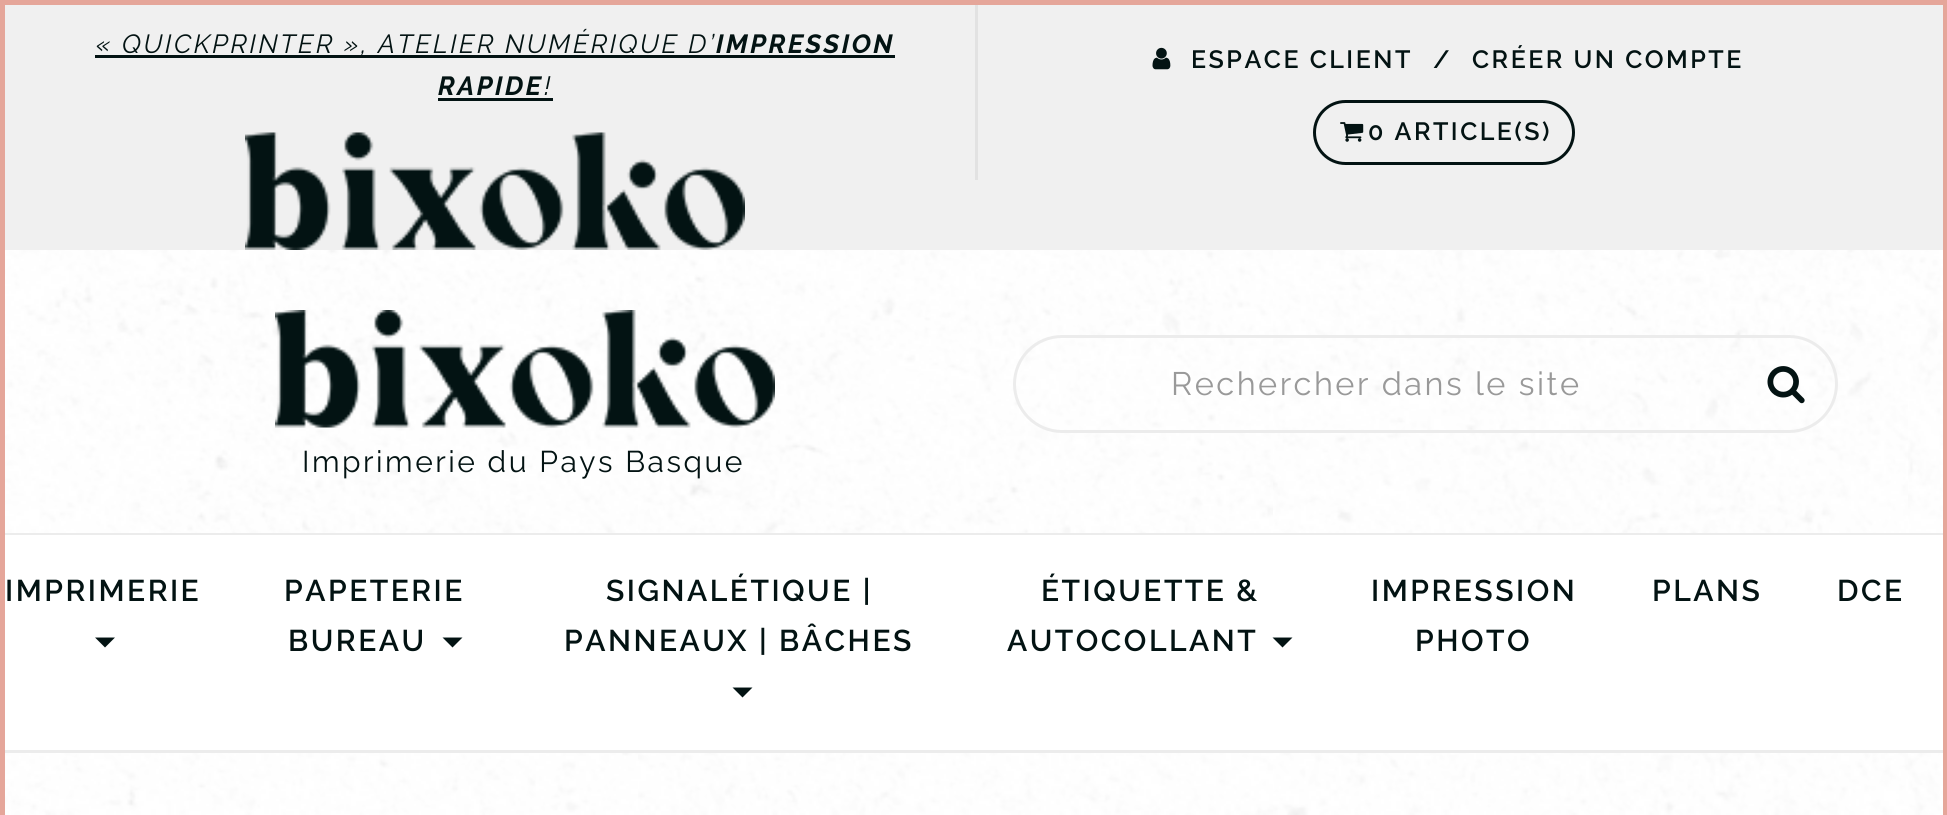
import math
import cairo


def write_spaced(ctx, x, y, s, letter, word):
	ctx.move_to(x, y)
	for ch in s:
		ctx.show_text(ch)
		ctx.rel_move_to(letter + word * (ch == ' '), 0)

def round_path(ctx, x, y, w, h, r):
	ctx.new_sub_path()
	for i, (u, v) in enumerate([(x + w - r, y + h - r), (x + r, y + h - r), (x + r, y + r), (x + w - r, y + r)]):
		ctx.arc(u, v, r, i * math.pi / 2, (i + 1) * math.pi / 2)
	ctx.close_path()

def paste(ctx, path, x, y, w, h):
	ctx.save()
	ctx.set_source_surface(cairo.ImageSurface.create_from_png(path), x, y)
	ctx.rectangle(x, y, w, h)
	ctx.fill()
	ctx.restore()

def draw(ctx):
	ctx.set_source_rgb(1, 1, 1)
	ctx.paint()
	paste(ctx, 'media/1.png', 5, 250, 1938, 565)
	ctx.rectangle(2.5, 2.5, 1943, 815)
	ctx.set_source_rgb(0.898, 0.651, 0.604)
	ctx.set_line_width(5)
	ctx.stroke()
	ctx.set_source_rgb(0.941, 0.941, 0.941)
	ctx.rectangle(5, 5, 1938, 245)
	ctx.fill()
	ctx.set_source_rgb(0.012, 0.075, 0.075)
	ctx.rectangle(95, 55, 800, 3)
	ctx.fill()
	ctx.select_font_face('Raleway', cairo.FONT_SLANT_ITALIC)
	ctx.set_font_size(26.25)
	write_spaced(ctx, 96, 53, '« QUICKPRINTER », ATELIER NUMÉRIQUE D’', 2.5, 0)
	ctx.select_font_face('Raleway', cairo.FONT_SLANT_ITALIC, cairo.FONT_WEIGHT_BOLD)
	write_spaced(ctx, 716, 53, 'IMPRESSION', 2.5, 0)
	write_spaced(ctx, 438, 95, 'RAPIDE', 2.5, 0)
	ctx.rectangle(438, 98, 115, 3)
	ctx.fill()
	ctx.select_font_face('Raleway', cairo.FONT_SLANT_ITALIC)
	write_spaced(ctx, 544, 95, '!', 2.5, 0)
	paste(ctx, 'media/2.png', 245, 132, 500, 118)
	ctx.set_source_rgb(0.886, 0.886, 0.886)
	ctx.rectangle(975, 5, 3, 175)
	ctx.fill()
	paste(ctx, 'media/3.png', 1152, 47, 19, 23)
	ctx.select_font_face('Raleway SemiBold')
	ctx.set_font_size(25)
	ctx.set_source_rgb(0.012, 0.075, 0.075)
	for x, y, s in [
		(1191, 68, 'ESPACE CLIENT'),
		(1433, 68, '/'),
		(1472, 68, 'CRÉER UN COMPTE'),
	]:
		write_spaced(ctx, x, y, s, 2.5, 0)
	round_path(ctx, 1314.5, 101.5, 259, 62, 31)
	ctx.set_line_width(3)
	ctx.stroke()
	paste(ctx, 'media/4.png', 1340, 122, 24, 20)
	write_spaced(ctx, 1368, 140, '0 ARTICLE(S)', 2.5, 0)
	round_path(ctx, 1014.5, 336.5, 822, 95, 47.5)
	ctx.set_source_rgb(0.925, 0.925, 0.925)
	ctx.stroke()
	ctx.select_font_face('Raleway')
	ctx.set_font_size(32.5)
	ctx.set_source_rgb(0.6, 0.6, 0.6)
	write_spaced(ctx, 1171, 395, 'Rechercher dans le site', 2.5, 0)
	paste(ctx, 'media/5.png', 1767, 366, 38, 38)
	paste(ctx, 'media/6.png', 275, 310, 500, 118)
	ctx.set_font_size(30)
	ctx.set_source_rgb(0.012, 0.075, 0.075)
	write_spaced(ctx, 302, 472, 'Imprimerie du Pays Basque', 2.5, 0)
	ctx.set_source_rgb(0.925, 0.925, 0.925)
	ctx.rectangle(5, 533, 1938, 2)
	ctx.rectangle(5, 750, 1938, 3)
	ctx.fill()
	ctx.set_source_rgb(1, 1, 1)
	ctx.rectangle(5, 535, 1938, 215)
	ctx.fill()
	ctx.select_font_face('Raleway SemiBold')
	ctx.set_source_rgb(0.012, 0.075, 0.075)
	write_spaced(ctx, 5, 601, 'IMPRIMERIE', 2.5, 0)
	ctx.new_path()
	ctx.move_to(95, 637.5)
	ctx.line_to(115, 637.5)
	ctx.line_to(105, 647.5)
	ctx.close_path()
	ctx.fill()
	write_spaced(ctx, 284, 601, 'PAPETERIE', 2.5, 0)
	write_spaced(ctx, 288, 651, 'BUREAU', 2.5, 0)
	ctx.new_path()
	ctx.move_to(442.5, 637.5)
	ctx.line_to(462.5, 637.5)
	ctx.line_to(452.5, 647.5)
	ctx.close_path()
	ctx.fill()
	write_spaced(ctx, 606, 601, 'SIGNALÉTIQUE |', 2.5, 0)
	write_spaced(ctx, 564, 651, 'PANNEAUX | BÂCHES', 2.5, 0)
	ctx.new_path()
	ctx.move_to(732.5, 687.5)
	ctx.line_to(752.5, 687.5)
	ctx.line_to(742.5, 697.5)
	ctx.close_path()
	ctx.fill()
	write_spaced(ctx, 1041, 601, 'ÉTIQUETTE &', 2.5, 0)
	write_spaced(ctx, 1007, 651, 'AUTOCOLLANT', 2.5, 0)
	ctx.new_path()
	ctx.move_to(1272.5, 637.5)
	ctx.line_to(1292.5, 637.5)
	ctx.line_to(1282.5, 647.5)
	ctx.close_path()
	ctx.fill()
	for x, y, s in [
		(1371, 601, 'IMPRESSION'),
		(1415, 651, 'PHOTO'),
		(1652, 601, 'PLANS'),
		(1837, 601, 'DCE'),
	]:
		write_spaced(ctx, x, y, s, 2.5, 0)


surface = cairo.ImageSurface(cairo.FORMAT_RGB24, 1947, 815)
ctx = cairo.Context(surface)
options = cairo.FontOptions()
options.set_hint_metrics(cairo.HINT_METRICS_OFF)
options.set_hint_style(cairo.HINT_STYLE_NONE)
ctx.set_font_options(options)
ctx.set_miter_limit(4)
draw(ctx)
surface.write_to_png('image.png')
